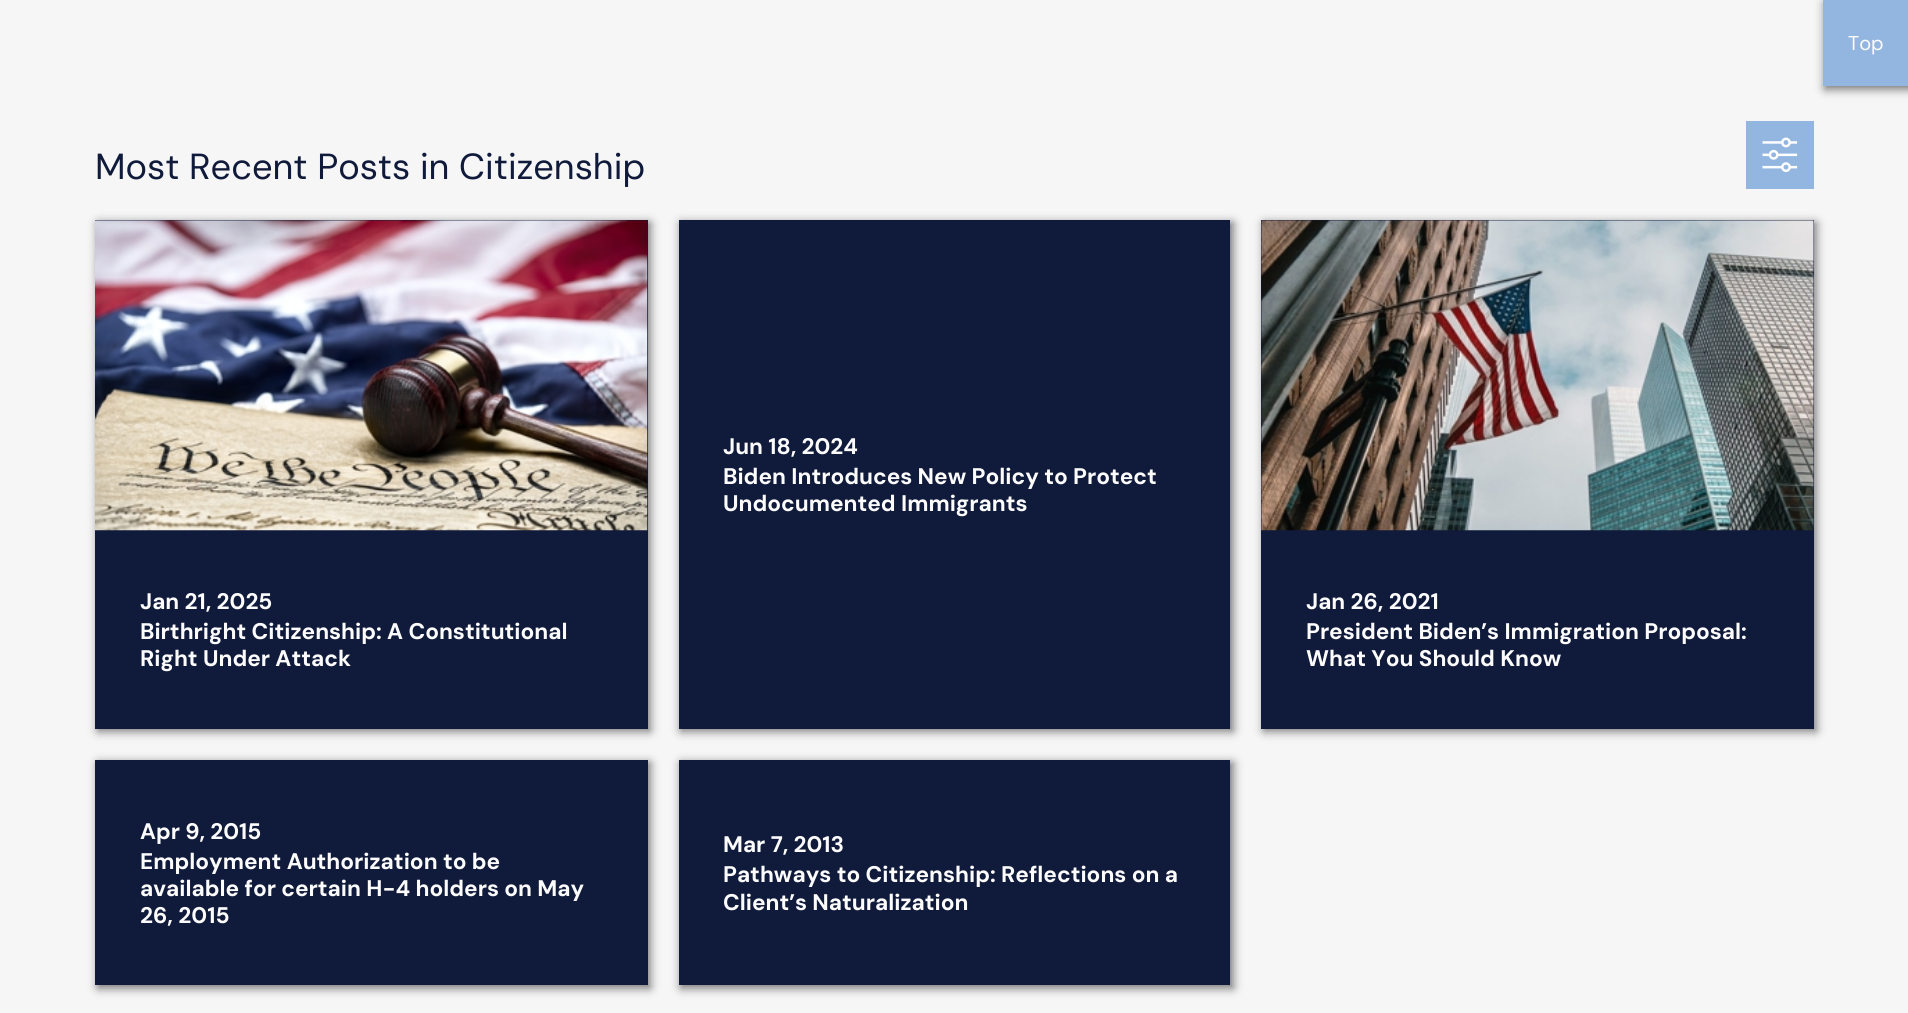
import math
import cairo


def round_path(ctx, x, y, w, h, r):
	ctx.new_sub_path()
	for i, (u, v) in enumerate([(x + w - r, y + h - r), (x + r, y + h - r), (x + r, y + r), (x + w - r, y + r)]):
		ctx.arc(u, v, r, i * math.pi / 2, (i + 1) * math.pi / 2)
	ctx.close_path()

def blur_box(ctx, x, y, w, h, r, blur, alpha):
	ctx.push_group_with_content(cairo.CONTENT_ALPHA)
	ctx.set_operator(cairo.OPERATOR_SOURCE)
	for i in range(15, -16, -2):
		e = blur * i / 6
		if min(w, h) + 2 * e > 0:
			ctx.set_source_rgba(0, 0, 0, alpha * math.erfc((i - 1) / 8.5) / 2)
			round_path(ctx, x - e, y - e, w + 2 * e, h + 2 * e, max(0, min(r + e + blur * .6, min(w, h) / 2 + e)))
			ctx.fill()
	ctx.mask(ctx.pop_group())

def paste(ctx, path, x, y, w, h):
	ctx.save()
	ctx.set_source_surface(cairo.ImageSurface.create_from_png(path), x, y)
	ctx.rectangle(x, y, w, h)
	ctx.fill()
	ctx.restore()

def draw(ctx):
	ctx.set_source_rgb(0.961, 0.961, 0.961)
	ctx.paint()
	ctx.set_source_rgb(0, 0, 0)
	blur_box(ctx, 1825, 3, 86, 86, 0, 5, 0.55)
	ctx.set_source_rgb(0.576, 0.714, 0.882)
	ctx.rectangle(1823, 0, 85, 86)
	ctx.fill()
	ctx.select_font_face('DM Sans')
	ctx.set_font_size(20)
	ctx.set_source_rgb(0.988, 0.988, 0.988)
	ctx.move_to(1848, 50)
	ctx.show_text('Top')
	ctx.set_font_size(36.25)
	ctx.set_source_rgb(0.063, 0.102, 0.227)
	ctx.move_to(95, 179)
	ctx.show_text('Most Recent Posts in Citizenship')
	ctx.set_source_rgb(0.576, 0.714, 0.882)
	ctx.rectangle(1746, 121, 68, 68)
	ctx.fill()
	paste(ctx, 'media/1.png', 1762, 137, 36, 35)
	ctx.set_source_rgb(0, 0, 0)
	blur_box(ctx, 681, 223, 552, 508, 0, 5, 0.55)
	ctx.set_source_rgb(0.063, 0.102, 0.227)
	ctx.rectangle(679, 220, 551, 509)
	ctx.fill()
	ctx.select_font_face('DM Sans', cairo.FONT_SLANT_NORMAL, cairo.FONT_WEIGHT_BOLD)
	ctx.set_font_size(22.5)
	ctx.set_source_rgb(0.988, 0.988, 0.988)
	ctx.move_to(723, 454)
	ctx.show_text('Jun 18, 2024')
	ctx.set_font_size(22.6)
	ctx.move_to(723, 484)
	ctx.show_text('Biden Introduces New Policy to Protect')
	ctx.move_to(723, 511)
	ctx.show_text('Undocumented Immigrants')
	ctx.set_source_rgb(0, 0, 0)
	blur_box(ctx, 98, 223, 552, 508, 0, 5, 0.55)
	ctx.set_source_rgb(0.063, 0.102, 0.227)
	ctx.rectangle(95, 220, 553, 509)
	ctx.fill()
	paste(ctx, 'media/2.png', 95, 220, 553, 311)
	ctx.set_font_size(22.5)
	ctx.set_source_rgb(0.988, 0.988, 0.988)
	ctx.move_to(140, 609)
	ctx.show_text('Jan 21, 2025')
	ctx.set_font_size(22.6)
	ctx.move_to(140, 639)
	ctx.show_text('Birthright Citizenship: A Constitutional')
	ctx.move_to(140, 666)
	ctx.show_text('Right Under Attack')
	ctx.set_source_rgb(0, 0, 0)
	blur_box(ctx, 1264, 223, 552, 508, 0, 5, 0.55)
	ctx.set_source_rgb(0.063, 0.102, 0.227)
	ctx.rectangle(1261, 220, 553, 509)
	ctx.fill()
	paste(ctx, 'media/3.png', 1261, 220, 553, 311)
	ctx.set_font_size(22.5)
	ctx.set_source_rgb(0.988, 0.988, 0.988)
	ctx.move_to(1306, 609)
	ctx.show_text('Jan 26, 2021')
	ctx.set_font_size(22.6)
	ctx.move_to(1306, 639)
	ctx.show_text('President Biden’s Immigration Proposal:')
	ctx.move_to(1306, 666)
	ctx.show_text('What You Should Know')
	ctx.set_source_rgb(0, 0, 0)
	blur_box(ctx, 98, 763, 552, 225, 0, 5, 0.55)
	ctx.set_source_rgb(0.063, 0.102, 0.227)
	ctx.rectangle(95, 760, 553, 225)
	ctx.fill()
	ctx.set_font_size(22.5)
	ctx.set_source_rgb(0.988, 0.988, 0.988)
	ctx.move_to(140, 839)
	ctx.show_text('Apr 9, 2015')
	ctx.set_font_size(22.6)
	for x, y, s in [
		(140, 869, 'Employment Authorization to be'),
		(140, 896, 'available for certain H-4 holders on May'),
		(140, 923, '26, 2015'),
	]:
		ctx.move_to(x, y)
		ctx.show_text(s)
	ctx.set_source_rgb(0, 0, 0)
	blur_box(ctx, 681, 763, 552, 225, 0, 5, 0.55)
	ctx.set_source_rgb(0.063, 0.102, 0.227)
	ctx.rectangle(679, 760, 551, 225)
	ctx.fill()
	ctx.set_font_size(22.5)
	ctx.set_source_rgb(0.988, 0.988, 0.988)
	ctx.move_to(723, 852)
	ctx.show_text('Mar 7, 2013')
	ctx.set_font_size(22.6)
	ctx.move_to(723, 882)
	ctx.show_text('Pathways to Citizenship: Reflections on a')
	ctx.move_to(723, 910)
	ctx.show_text('Client’s Naturalization')


surface = cairo.ImageSurface(cairo.FORMAT_RGB24, 1908, 1013)
ctx = cairo.Context(surface)
options = cairo.FontOptions()
options.set_hint_metrics(cairo.HINT_METRICS_OFF)
options.set_hint_style(cairo.HINT_STYLE_NONE)
ctx.set_font_options(options)
ctx.set_miter_limit(4)
draw(ctx)
surface.write_to_png('image.png')
